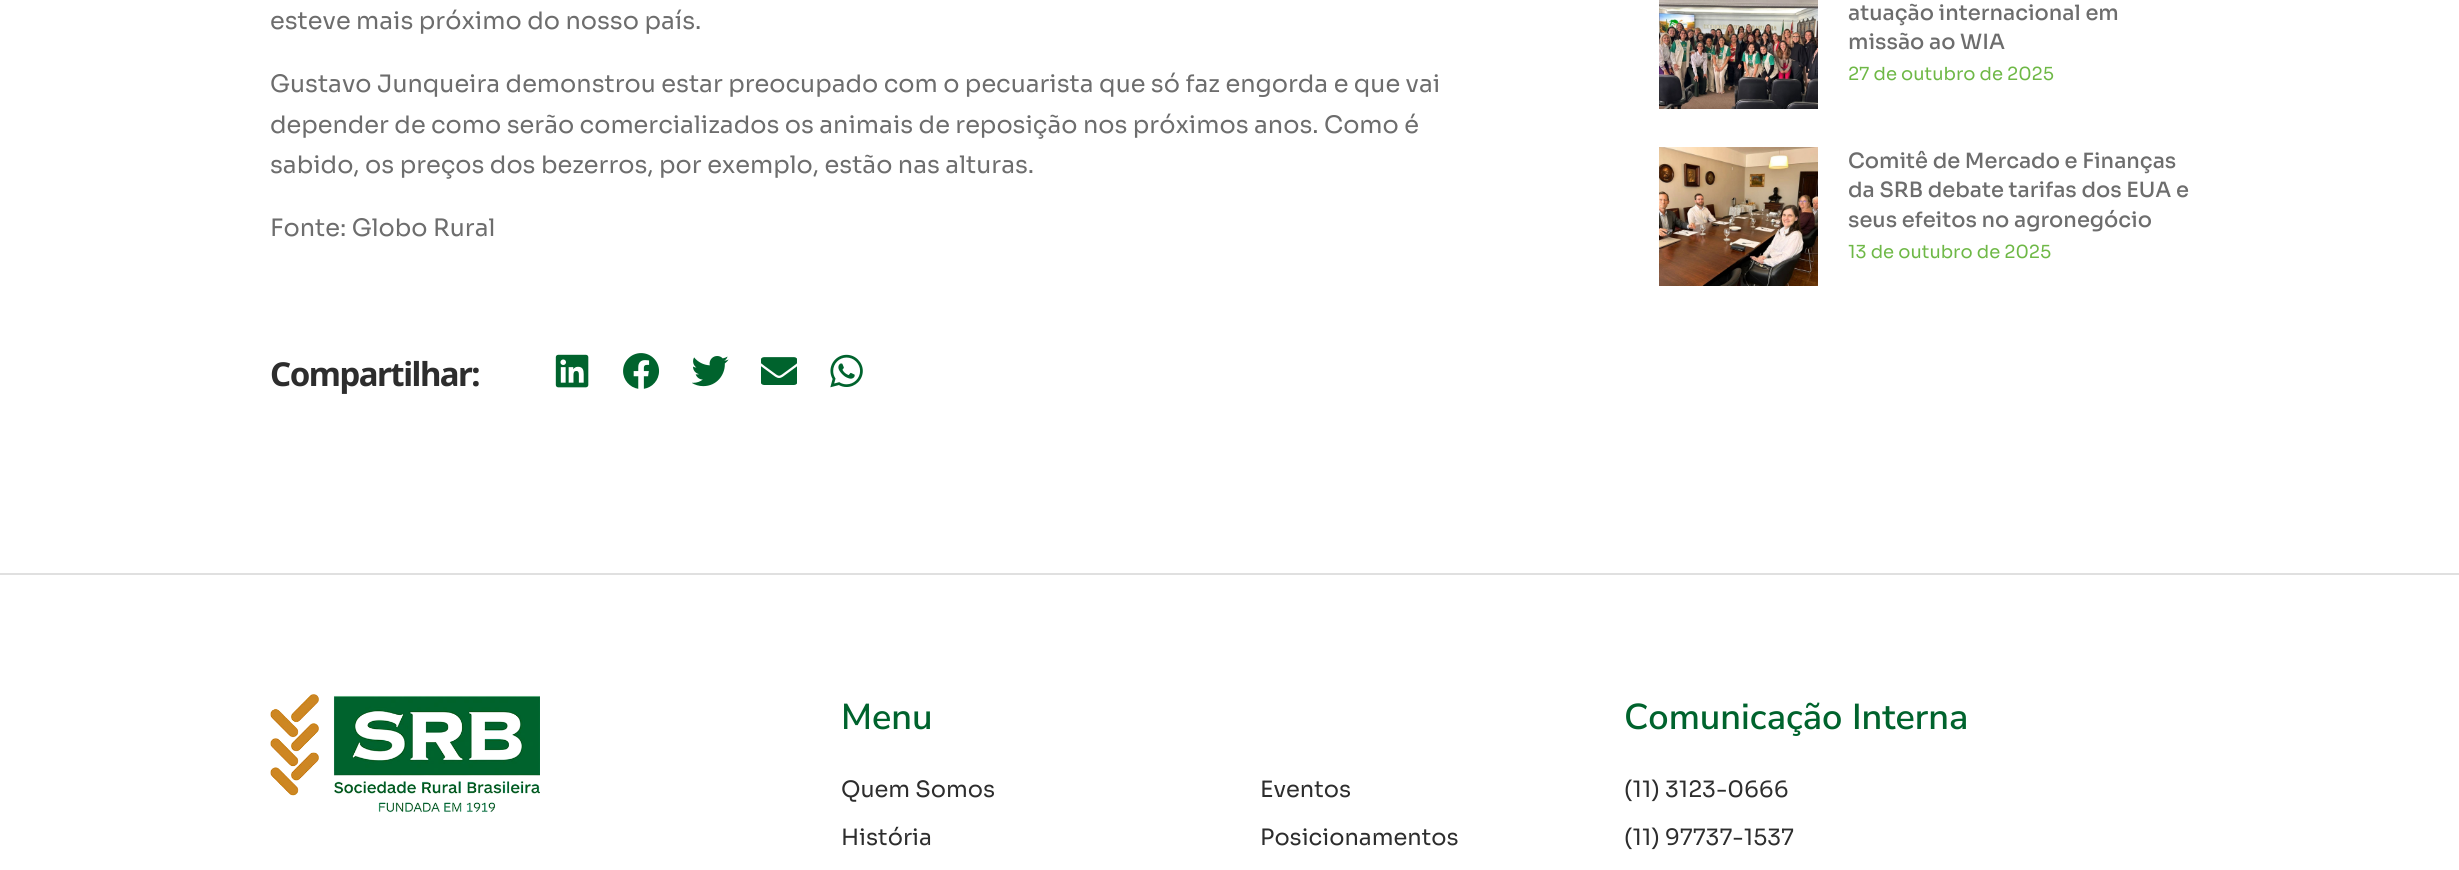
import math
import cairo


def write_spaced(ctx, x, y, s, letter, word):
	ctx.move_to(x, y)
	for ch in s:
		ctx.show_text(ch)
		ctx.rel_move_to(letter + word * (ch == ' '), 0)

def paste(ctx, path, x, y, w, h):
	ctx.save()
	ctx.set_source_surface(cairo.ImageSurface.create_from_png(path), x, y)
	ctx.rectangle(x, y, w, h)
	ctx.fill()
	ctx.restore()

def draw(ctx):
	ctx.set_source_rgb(1, 1, 1)
	ctx.paint()
	ctx.select_font_face('Sora')
	ctx.set_font_size(24)
	ctx.set_source_rgb(0.427, 0.427, 0.427)
	for x, y, s in [
		(270, 29, 'esteve mais próximo do nosso país.'),
		(270, 92, 'Gustavo Junqueira demonstrou estar preocupado com o pecuarista que só faz engorda e que vai'),
		(270, 133, 'depender de como serão comercializados os animais de reposição nos próximos anos. Como é'),
		(270, 173, 'sabido, os preços dos bezerros, por exemplo, estão nas alturas.'),
		(270, 236, 'Fonte: Globo Rural'),
	]:
		ctx.move_to(x, y)
		ctx.show_text(s)
	ctx.select_font_face('Noto Sans', cairo.FONT_SLANT_NORMAL, cairo.FONT_WEIGHT_BOLD)
	ctx.set_font_size(33)
	ctx.set_source_rgb(0.176, 0.176, 0.176)
	write_spaced(ctx, 270, 386, 'Compartilhar:', -1.5, 0)
	paste(ctx, 'media/1.png', 555, 354, 34, 34)
	paste(ctx, 'media/2.png', 623, 353, 37, 36)
	paste(ctx, 'media/3.png', 692, 356, 37, 31)
	paste(ctx, 'media/4.png', 761, 357, 36, 28)
	paste(ctx, 'media/5.png', 830, 354, 33, 34)
	paste(ctx, 'media/6.png', 1659, 0, 159, 109)
	ctx.select_font_face('Sora Medium')
	ctx.set_font_size(21)
	ctx.set_source_rgb(0.427, 0.427, 0.427)
	ctx.move_to(1848, 20)
	ctx.show_text('atuação internacional em')
	ctx.move_to(1848, 49)
	ctx.show_text('missão ao WIA')
	ctx.select_font_face('Sora')
	ctx.set_font_size(18)
	ctx.set_source_rgb(0.431, 0.722, 0.275)
	ctx.move_to(1848, 80)
	ctx.show_text('27 de outubro de 2025')
	paste(ctx, 'media/7.png', 1659, 147, 159, 139)
	ctx.select_font_face('Sora Medium')
	ctx.set_font_size(21)
	ctx.set_source_rgb(0.427, 0.427, 0.427)
	for x, y, s in [
		(1848, 168, 'Comitê de Mercado e Finanças'),
		(1848, 197, 'da SRB debate tarifas dos EUA e'),
		(1848, 227, 'seus efeitos no agronegócio'),
	]:
		ctx.move_to(x, y)
		ctx.show_text(s)
	ctx.select_font_face('Sora')
	ctx.set_font_size(18)
	ctx.set_source_rgb(0.431, 0.722, 0.275)
	ctx.move_to(1848, 258)
	ctx.show_text('13 de outubro de 2025')
	ctx.set_source_rgb(0.878, 0.878, 0.878)
	ctx.rectangle(0, 573, 2459, 2)
	ctx.fill()
	paste(ctx, 'media/8.png', 270, 694, 270, 119)
	ctx.select_font_face('Nunito Sans SemiBold')
	ctx.set_font_size(36)
	ctx.set_source_rgb(0, 0.388, 0.176)
	ctx.move_to(841, 729)
	ctx.show_text('Menu')
	ctx.select_font_face('Sora')
	ctx.set_font_size(22.5)
	ctx.set_source_rgb(0.176, 0.176, 0.176)
	for x, y, s in [
		(841, 797, 'Quem Somos'),
		(841, 845, 'História'),
		(1260, 797, 'Eventos'),
		(1260, 845, 'Posicionamentos'),
	]:
		ctx.move_to(x, y)
		ctx.show_text(s)
	ctx.select_font_face('Nunito Sans SemiBold')
	ctx.set_font_size(36)
	ctx.set_source_rgb(0, 0.388, 0.176)
	ctx.move_to(1624, 729)
	ctx.show_text('Comunicação Interna')
	ctx.select_font_face('Sora')
	ctx.set_font_size(22.5)
	ctx.set_source_rgb(0.176, 0.176, 0.176)
	ctx.move_to(1624, 797)
	ctx.show_text('(11) 3123-0666')
	ctx.move_to(1624, 845)
	ctx.show_text('(11) 97737-1537')


surface = cairo.ImageSurface(cairo.FORMAT_RGB24, 2459, 870)
ctx = cairo.Context(surface)
options = cairo.FontOptions()
options.set_hint_metrics(cairo.HINT_METRICS_OFF)
options.set_hint_style(cairo.HINT_STYLE_NONE)
ctx.set_font_options(options)
ctx.set_miter_limit(4)
draw(ctx)
surface.write_to_png('image.png')
